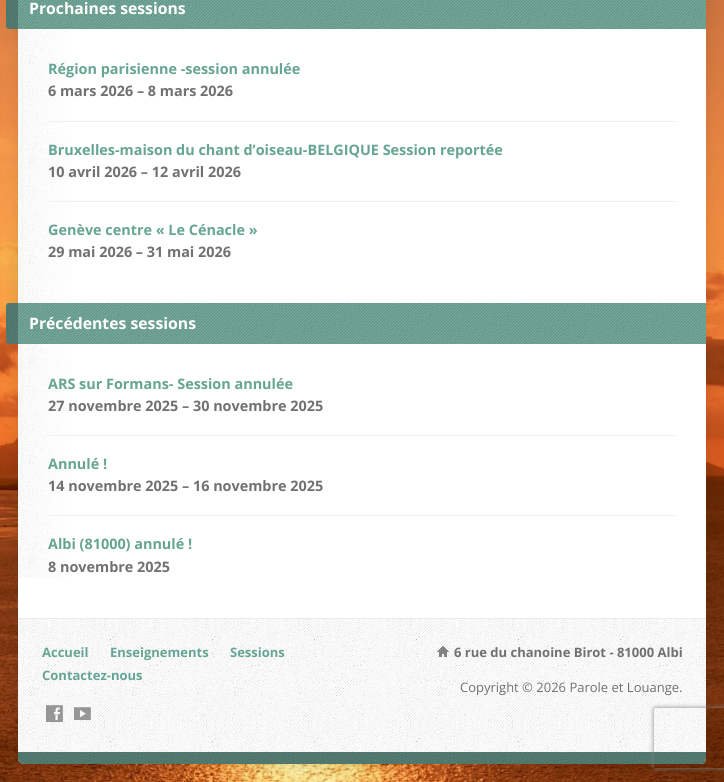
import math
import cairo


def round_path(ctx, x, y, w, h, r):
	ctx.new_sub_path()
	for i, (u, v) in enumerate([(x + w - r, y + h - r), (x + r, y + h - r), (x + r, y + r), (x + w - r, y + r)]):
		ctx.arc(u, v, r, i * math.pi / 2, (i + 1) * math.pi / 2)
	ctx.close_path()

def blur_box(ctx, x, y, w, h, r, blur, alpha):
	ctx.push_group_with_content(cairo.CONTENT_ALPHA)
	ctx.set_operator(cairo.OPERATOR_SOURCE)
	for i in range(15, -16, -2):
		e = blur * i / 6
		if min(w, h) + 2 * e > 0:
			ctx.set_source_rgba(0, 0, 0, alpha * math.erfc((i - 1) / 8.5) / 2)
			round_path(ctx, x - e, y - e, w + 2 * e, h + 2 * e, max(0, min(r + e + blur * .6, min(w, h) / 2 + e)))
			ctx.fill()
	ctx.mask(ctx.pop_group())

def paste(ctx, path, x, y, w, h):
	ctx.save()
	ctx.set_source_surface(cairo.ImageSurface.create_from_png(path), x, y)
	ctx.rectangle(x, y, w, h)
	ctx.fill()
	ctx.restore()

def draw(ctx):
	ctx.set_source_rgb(1, 1, 1)
	ctx.paint()
	paste(ctx, 'media/1.png', 0, 0, 724, 782)
	ctx.set_source_rgb(0, 0, 0)
	blur_box(ctx, 18, -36, 688, 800, 6, 10, 0.12)
	ctx.set_source_rgb(1, 1, 1)
	round_path(ctx, 18, -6, 688, 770, 6)
	ctx.fill()
	paste(ctx, 'media/2.png', 18, 29, 54, 549)
	ctx.set_source_rgb(0.4, 0.647, 0.576)
	ctx.new_path()
	ctx.move_to(9, -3)
	ctx.line_to(706, -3)
	ctx.line_to(706, 29)
	ctx.line_to(9, 29)
	ctx.curve_to(7.5, 29, 6, 27.5, 6, 26)
	ctx.line_to(6, 0)
	ctx.curve_to(6, -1.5, 7.5, -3, 9, -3)
	ctx.close_path()
	ctx.fill()
	paste(ctx, 'media/3.png', 6, 0, 700, 29)
	ctx.select_font_face('Open Sans', cairo.FONT_SLANT_NORMAL, cairo.FONT_WEIGHT_BOLD)
	ctx.set_font_size(15.75)
	ctx.set_source_rgb(1, 1, 1)
	ctx.move_to(29, 14)
	ctx.show_text('Prochaines sessions')
	ctx.set_font_size(14.4)
	ctx.set_source_rgb(0.4, 0.647, 0.576)
	ctx.move_to(48, 74)
	ctx.show_text('Région parisienne -session annulée')
	ctx.set_source_rgb(0.443, 0.443, 0.443)
	ctx.move_to(48, 96)
	ctx.show_text('6 mars 2026 – 8 mars 2026')
	ctx.set_source_rgb(0.945, 0.945, 0.945)
	ctx.rectangle(48, 121, 628, 1)
	ctx.fill()
	ctx.set_source_rgb(0.4, 0.647, 0.576)
	ctx.move_to(48, 155)
	ctx.show_text('Bruxelles-maison du chant d’oiseau-BELGIQUE Session reportée')
	ctx.set_source_rgb(0.443, 0.443, 0.443)
	ctx.move_to(48, 177)
	ctx.show_text('10 avril 2026 – 12 avril 2026')
	ctx.set_source_rgb(0.945, 0.945, 0.945)
	ctx.rectangle(48, 201, 628, 1)
	ctx.fill()
	ctx.set_source_rgb(0.4, 0.647, 0.576)
	ctx.move_to(48, 235)
	ctx.show_text('Genève centre « Le Cénacle »')
	ctx.set_source_rgb(0.443, 0.443, 0.443)
	ctx.move_to(48, 257)
	ctx.show_text('29 mai 2026 – 31 mai 2026')
	ctx.set_source_rgb(0.4, 0.647, 0.576)
	ctx.new_path()
	ctx.move_to(9, 303)
	ctx.line_to(706, 303)
	ctx.line_to(706, 344)
	ctx.line_to(9, 344)
	ctx.curve_to(7.5, 344, 6, 342.5, 6, 341)
	ctx.line_to(6, 306)
	ctx.curve_to(6, 304.5, 7.5, 303, 9, 303)
	ctx.close_path()
	ctx.fill()
	paste(ctx, 'media/4.png', 6, 303, 700, 41)
	ctx.set_font_size(15.75)
	ctx.set_source_rgb(1, 1, 1)
	ctx.move_to(29, 329)
	ctx.show_text('Précédentes sessions')
	ctx.set_font_size(14.4)
	ctx.set_source_rgb(0.4, 0.647, 0.576)
	ctx.move_to(48, 389)
	ctx.show_text('ARS sur Formans- Session annulée')
	ctx.set_source_rgb(0.443, 0.443, 0.443)
	ctx.move_to(48, 411)
	ctx.show_text('27 novembre 2025 – 30 novembre 2025')
	ctx.set_source_rgb(0.945, 0.945, 0.945)
	ctx.rectangle(48, 435, 628, 1)
	ctx.fill()
	ctx.set_source_rgb(0.4, 0.647, 0.576)
	ctx.move_to(48, 469)
	ctx.show_text('Annulé !')
	ctx.set_source_rgb(0.443, 0.443, 0.443)
	ctx.move_to(48, 491)
	ctx.show_text('14 novembre 2025 – 16 novembre 2025')
	ctx.set_source_rgb(0.945, 0.945, 0.945)
	ctx.rectangle(48, 515, 628, 1)
	ctx.fill()
	ctx.set_source_rgb(0.4, 0.647, 0.576)
	ctx.move_to(48, 549)
	ctx.show_text('Albi (81000) annulé !')
	ctx.set_source_rgb(0.443, 0.443, 0.443)
	ctx.move_to(48, 572)
	ctx.show_text('8 novembre 2025')
	paste(ctx, 'media/5.png', 18, 619, 688, 133)
	ctx.set_source_rgb(0.918, 0.918, 0.918)
	ctx.rectangle(18, 618, 688, 1)
	ctx.fill()
	ctx.set_font_size(13)
	ctx.set_source_rgb(0.4, 0.647, 0.576)
	for x, y, s in [
		(42, 657, 'Accueil'),
		(110, 657, 'Enseignements'),
		(230, 657, 'Sessions'),
		(42, 680, 'Contactez-nous'),
	]:
		ctx.move_to(x, y)
		ctx.show_text(s)
	paste(ctx, 'media/6.png', 46, 705, 17, 18)
	paste(ctx, 'media/7.png', 74, 707, 17, 13)
	paste(ctx, 'media/8.png', 437, 646, 12, 11)
	ctx.set_source_rgb(0.443, 0.443, 0.443)
	ctx.move_to(454, 657)
	ctx.show_text('6 rue du chanoine Birot - 81000 Albi')
	ctx.select_font_face('Open Sans')
	ctx.move_to(460, 692)
	ctx.show_text('Copyright © 2026 Parole et Louange.')
	ctx.set_source_rgb(0.4, 0.647, 0.576)
	ctx.new_path()
	ctx.move_to(18, 752)
	ctx.line_to(706, 752)
	ctx.line_to(706, 758)
	ctx.curve_to(706, 761.5, 703.5, 764, 700, 764)
	ctx.line_to(24, 764)
	ctx.curve_to(20.5, 764, 18, 761.5, 18, 758)
	ctx.close_path()
	ctx.fill()
	paste(ctx, 'media/9.png', 18, 752, 688, 12)
	ctx.save()
	ctx.set_fill_rule(cairo.FILL_RULE_EVEN_ODD)
	ctx.new_path()
	ctx.move_to(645, 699)
	ctx.line_to(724, 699)
	ctx.line_to(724, 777)
	ctx.line_to(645, 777)
	ctx.close_path()
	ctx.move_to(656, 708)
	ctx.line_to(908, 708)
	ctx.curve_to(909, 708, 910, 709, 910, 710)
	ctx.line_to(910, 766)
	ctx.curve_to(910, 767, 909, 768, 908, 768)
	ctx.line_to(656, 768)
	ctx.curve_to(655, 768, 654, 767, 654, 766)
	ctx.line_to(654, 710)
	ctx.curve_to(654, 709, 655, 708, 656, 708)
	ctx.close_path()
	ctx.clip()
	ctx.set_source_rgb(0.502, 0.502, 0.502)
	blur_box(ctx, 654, 708, 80, 60, 2, 2.5, 1)
	ctx.restore()


surface = cairo.ImageSurface(cairo.FORMAT_RGB24, 724, 782)
ctx = cairo.Context(surface)
options = cairo.FontOptions()
options.set_hint_metrics(cairo.HINT_METRICS_OFF)
options.set_hint_style(cairo.HINT_STYLE_NONE)
ctx.set_font_options(options)
ctx.set_miter_limit(4)
draw(ctx)
surface.write_to_png('image.png')
